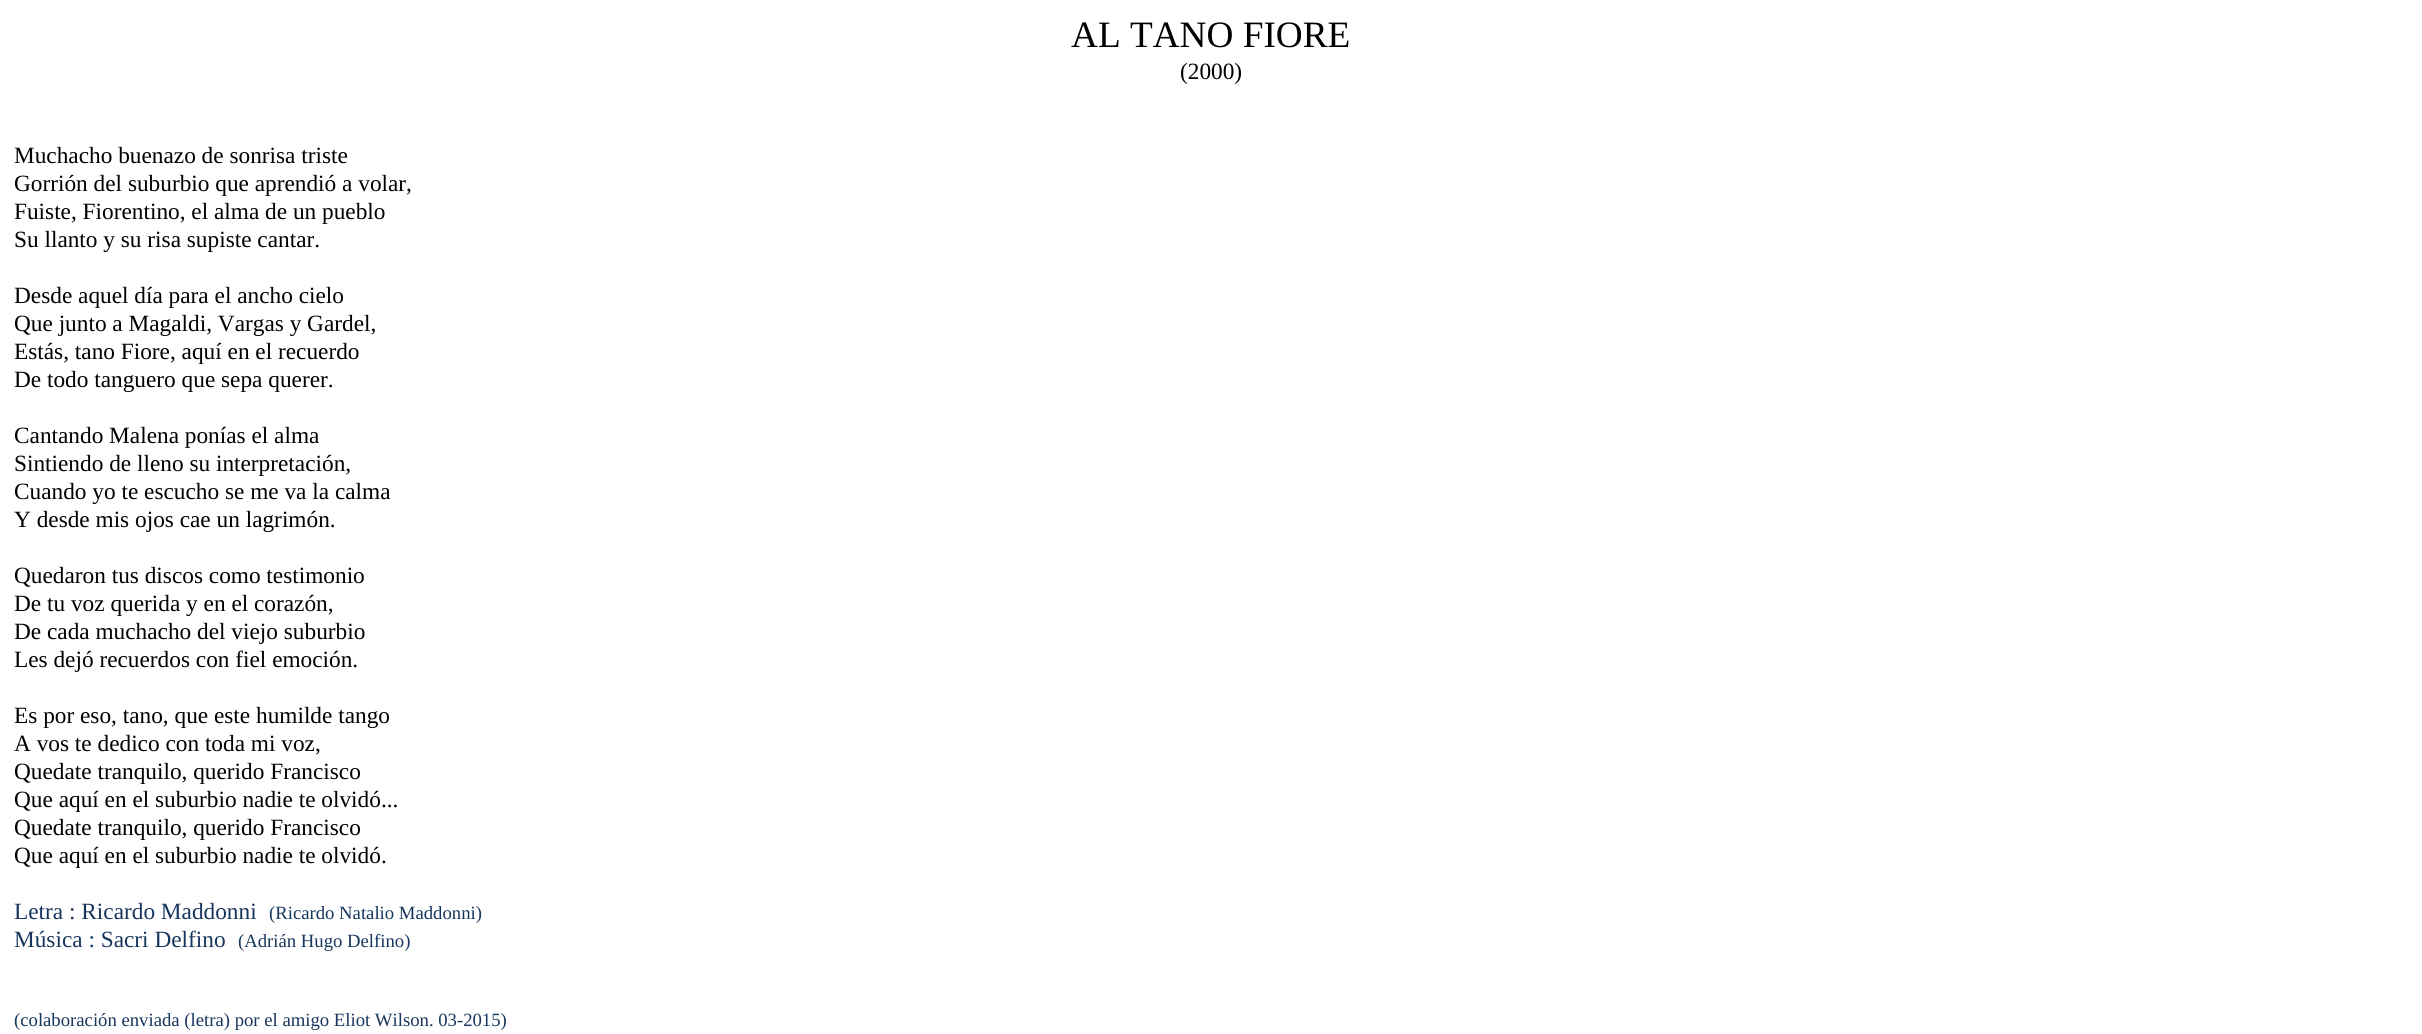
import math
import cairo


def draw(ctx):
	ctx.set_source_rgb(1, 1, 1)
	ctx.paint()
	ctx.select_font_face('Liberation Serif')
	ctx.set_font_size(37.25)
	ctx.set_source_rgb(0, 0, 0)
	ctx.move_to(1071, 47)
	ctx.show_text('AL TANO FIORE')
	ctx.set_font_size(23.3)
	for x, y, s in [
		(1180, 79, '(2000)'),
		(14, 163, 'Muchacho buenazo de sonrisa triste'),
		(14, 191, 'Gorrión del suburbio que aprendió a volar,'),
		(14, 219, 'Fuiste, Fiorentino, el alma de un pueblo'),
		(14, 247, 'Su llanto y su risa supiste cantar.'),
		(14, 303, 'Desde aquel día para el ancho cielo'),
		(14, 331, 'Que junto a Magaldi, Vargas y Gardel,'),
		(14, 359, 'Estás, tano Fiore, aquí en el recuerdo'),
		(14, 387, 'De todo tanguero que sepa querer.'),
		(14, 443, 'Cantando Malena ponías el alma'),
		(14, 471, 'Sintiendo de lleno su interpretación,'),
		(14, 499, 'Cuando yo te escucho se me va la calma'),
		(14, 527, 'Y desde mis ojos cae un lagrimón.'),
		(14, 583, 'Quedaron tus discos como testimonio'),
		(14, 611, 'De tu voz querida y en el corazón,'),
		(14, 639, 'De cada muchacho del viejo suburbio'),
		(14, 667, 'Les dejó recuerdos con fiel emoción.'),
		(14, 723, 'Es por eso, tano, que este humilde tango'),
		(14, 751, 'A vos te dedico con toda mi voz,'),
		(14, 779, 'Quedate tranquilo, querido Francisco'),
		(14, 807, 'Que aquí en el suburbio nadie te olvidó...'),
		(14, 835, 'Quedate tranquilo, querido Francisco'),
		(14, 863, 'Que aquí en el suburbio nadie te olvidó.'),
	]:
		ctx.move_to(x, y)
		ctx.show_text(s)
	ctx.set_source_rgb(0.09, 0.212, 0.365)
	ctx.move_to(14, 919)
	ctx.show_text('Letra : Ricardo Maddonni')
	ctx.set_font_size(18.7)
	ctx.move_to(269, 919)
	ctx.show_text('(Ricardo Natalio Maddonni)')
	ctx.set_font_size(23.3)
	ctx.move_to(14, 947)
	ctx.show_text('Música : Sacri Delfino')
	ctx.set_font_size(18.7)
	ctx.move_to(238, 947)
	ctx.show_text('(Adrián Hugo Delfino)')
	ctx.move_to(14, 1026)
	ctx.show_text('(colaboración enviada (letra) por el amigo Eliot Wilson. 03-2015)')


surface = cairo.ImageSurface(cairo.FORMAT_RGB24, 2422, 1034)
ctx = cairo.Context(surface)
options = cairo.FontOptions()
options.set_hint_metrics(cairo.HINT_METRICS_OFF)
options.set_hint_style(cairo.HINT_STYLE_NONE)
ctx.set_font_options(options)
ctx.set_miter_limit(4)
draw(ctx)
surface.write_to_png('image.png')
